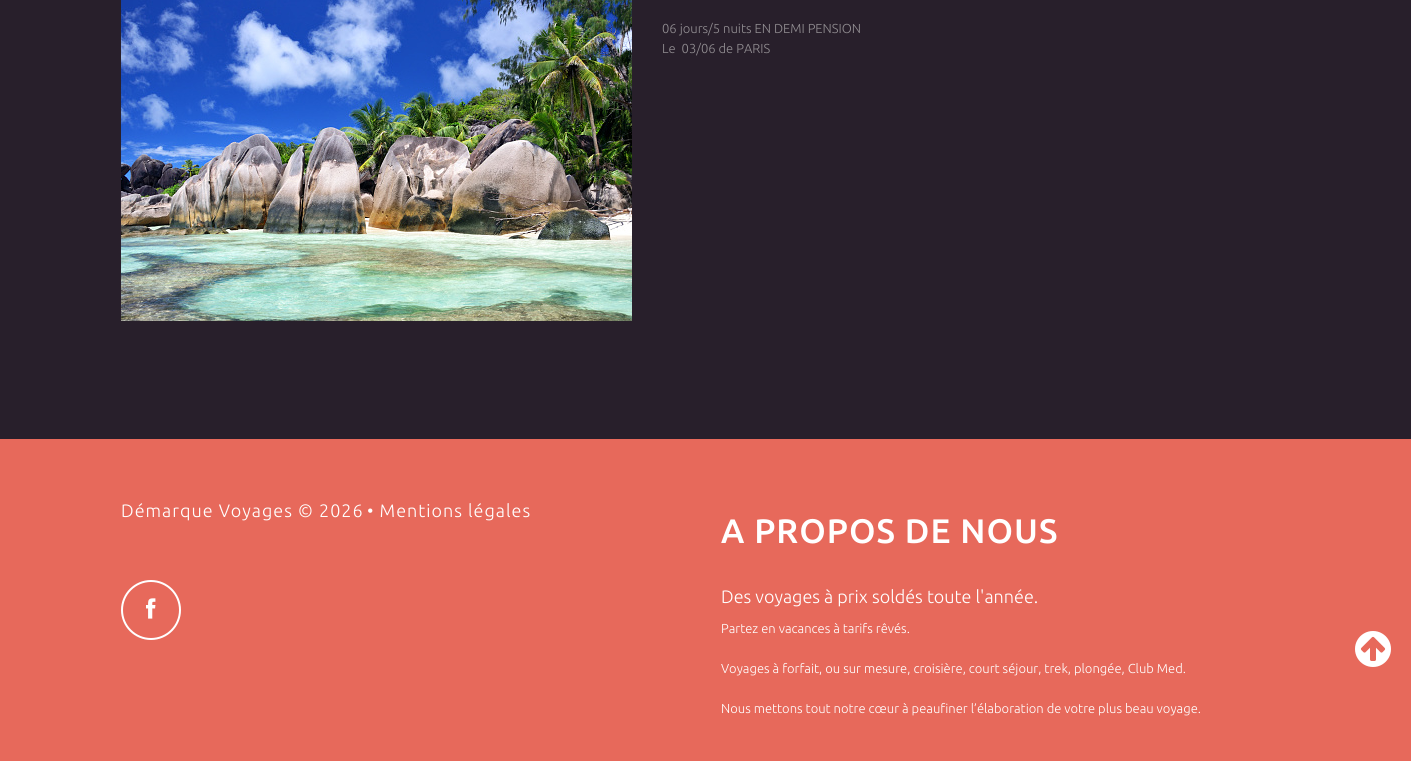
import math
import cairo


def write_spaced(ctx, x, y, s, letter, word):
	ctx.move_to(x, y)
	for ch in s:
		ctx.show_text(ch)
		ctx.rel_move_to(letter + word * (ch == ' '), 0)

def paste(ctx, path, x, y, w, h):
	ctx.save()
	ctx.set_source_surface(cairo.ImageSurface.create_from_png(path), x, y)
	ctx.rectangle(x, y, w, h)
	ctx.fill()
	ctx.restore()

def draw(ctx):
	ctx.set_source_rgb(0.157, 0.122, 0.169)
	ctx.paint()
	paste(ctx, 'media/1.png', 121, 0, 511, 321)
	ctx.select_font_face('Ubuntu Light')
	ctx.set_font_size(13)
	ctx.set_source_rgb(0.573, 0.557, 0.573)
	ctx.move_to(662, 33)
	ctx.show_text('06 jours/5 nuits EN DEMI PENSION')
	ctx.move_to(662, 53)
	ctx.show_text('Le  03/06 de PARIS')
	ctx.set_source_rgb(0.906, 0.412, 0.357)
	ctx.rectangle(0, 439, 1411, 322)
	ctx.fill()
	ctx.set_font_size(18)
	ctx.set_source_rgb(1, 1, 1)
	write_spaced(ctx, 121, 517, 'Démarque Voyages © 2026', 1, 0)
	write_spaced(ctx, 367, 517, '• Mentions légales', 1, 0)
	ctx.new_path()
	ctx.arc(151, 610, 29, 0, 2 * math.pi)
	ctx.stroke()
	paste(ctx, 'media/2.png', 146, 598, 10, 21)
	ctx.select_font_face('Ubuntu Medium')
	ctx.set_font_size(34)
	write_spaced(ctx, 721, 543, 'A PROPOS DE NOUS', 1, 0)
	ctx.select_font_face('Ubuntu Light')
	ctx.set_font_size(18)
	ctx.move_to(721, 603)
	ctx.show_text('Des voyages à prix soldés toute l\'année.')
	ctx.set_font_size(13)
	for x, y, s in [
		(721, 633, 'Partez en vacances à tarifs rêvés.'),
		(721, 673, 'Voyages à forfait, ou sur mesure, croisière, court séjour, trek, plongée, Club Med.'),
		(721, 713, 'Nous mettons tout notre cœur à peaufiner l’élaboration de votre plus beau voyage.'),
	]:
		ctx.move_to(x, y)
		ctx.show_text(s)
	paste(ctx, 'media/3.png', 1355, 631, 36, 36)


surface = cairo.ImageSurface(cairo.FORMAT_RGB24, 1411, 761)
ctx = cairo.Context(surface)
options = cairo.FontOptions()
options.set_hint_metrics(cairo.HINT_METRICS_OFF)
options.set_hint_style(cairo.HINT_STYLE_NONE)
ctx.set_font_options(options)
ctx.set_miter_limit(4)
draw(ctx)
surface.write_to_png('image.png')
